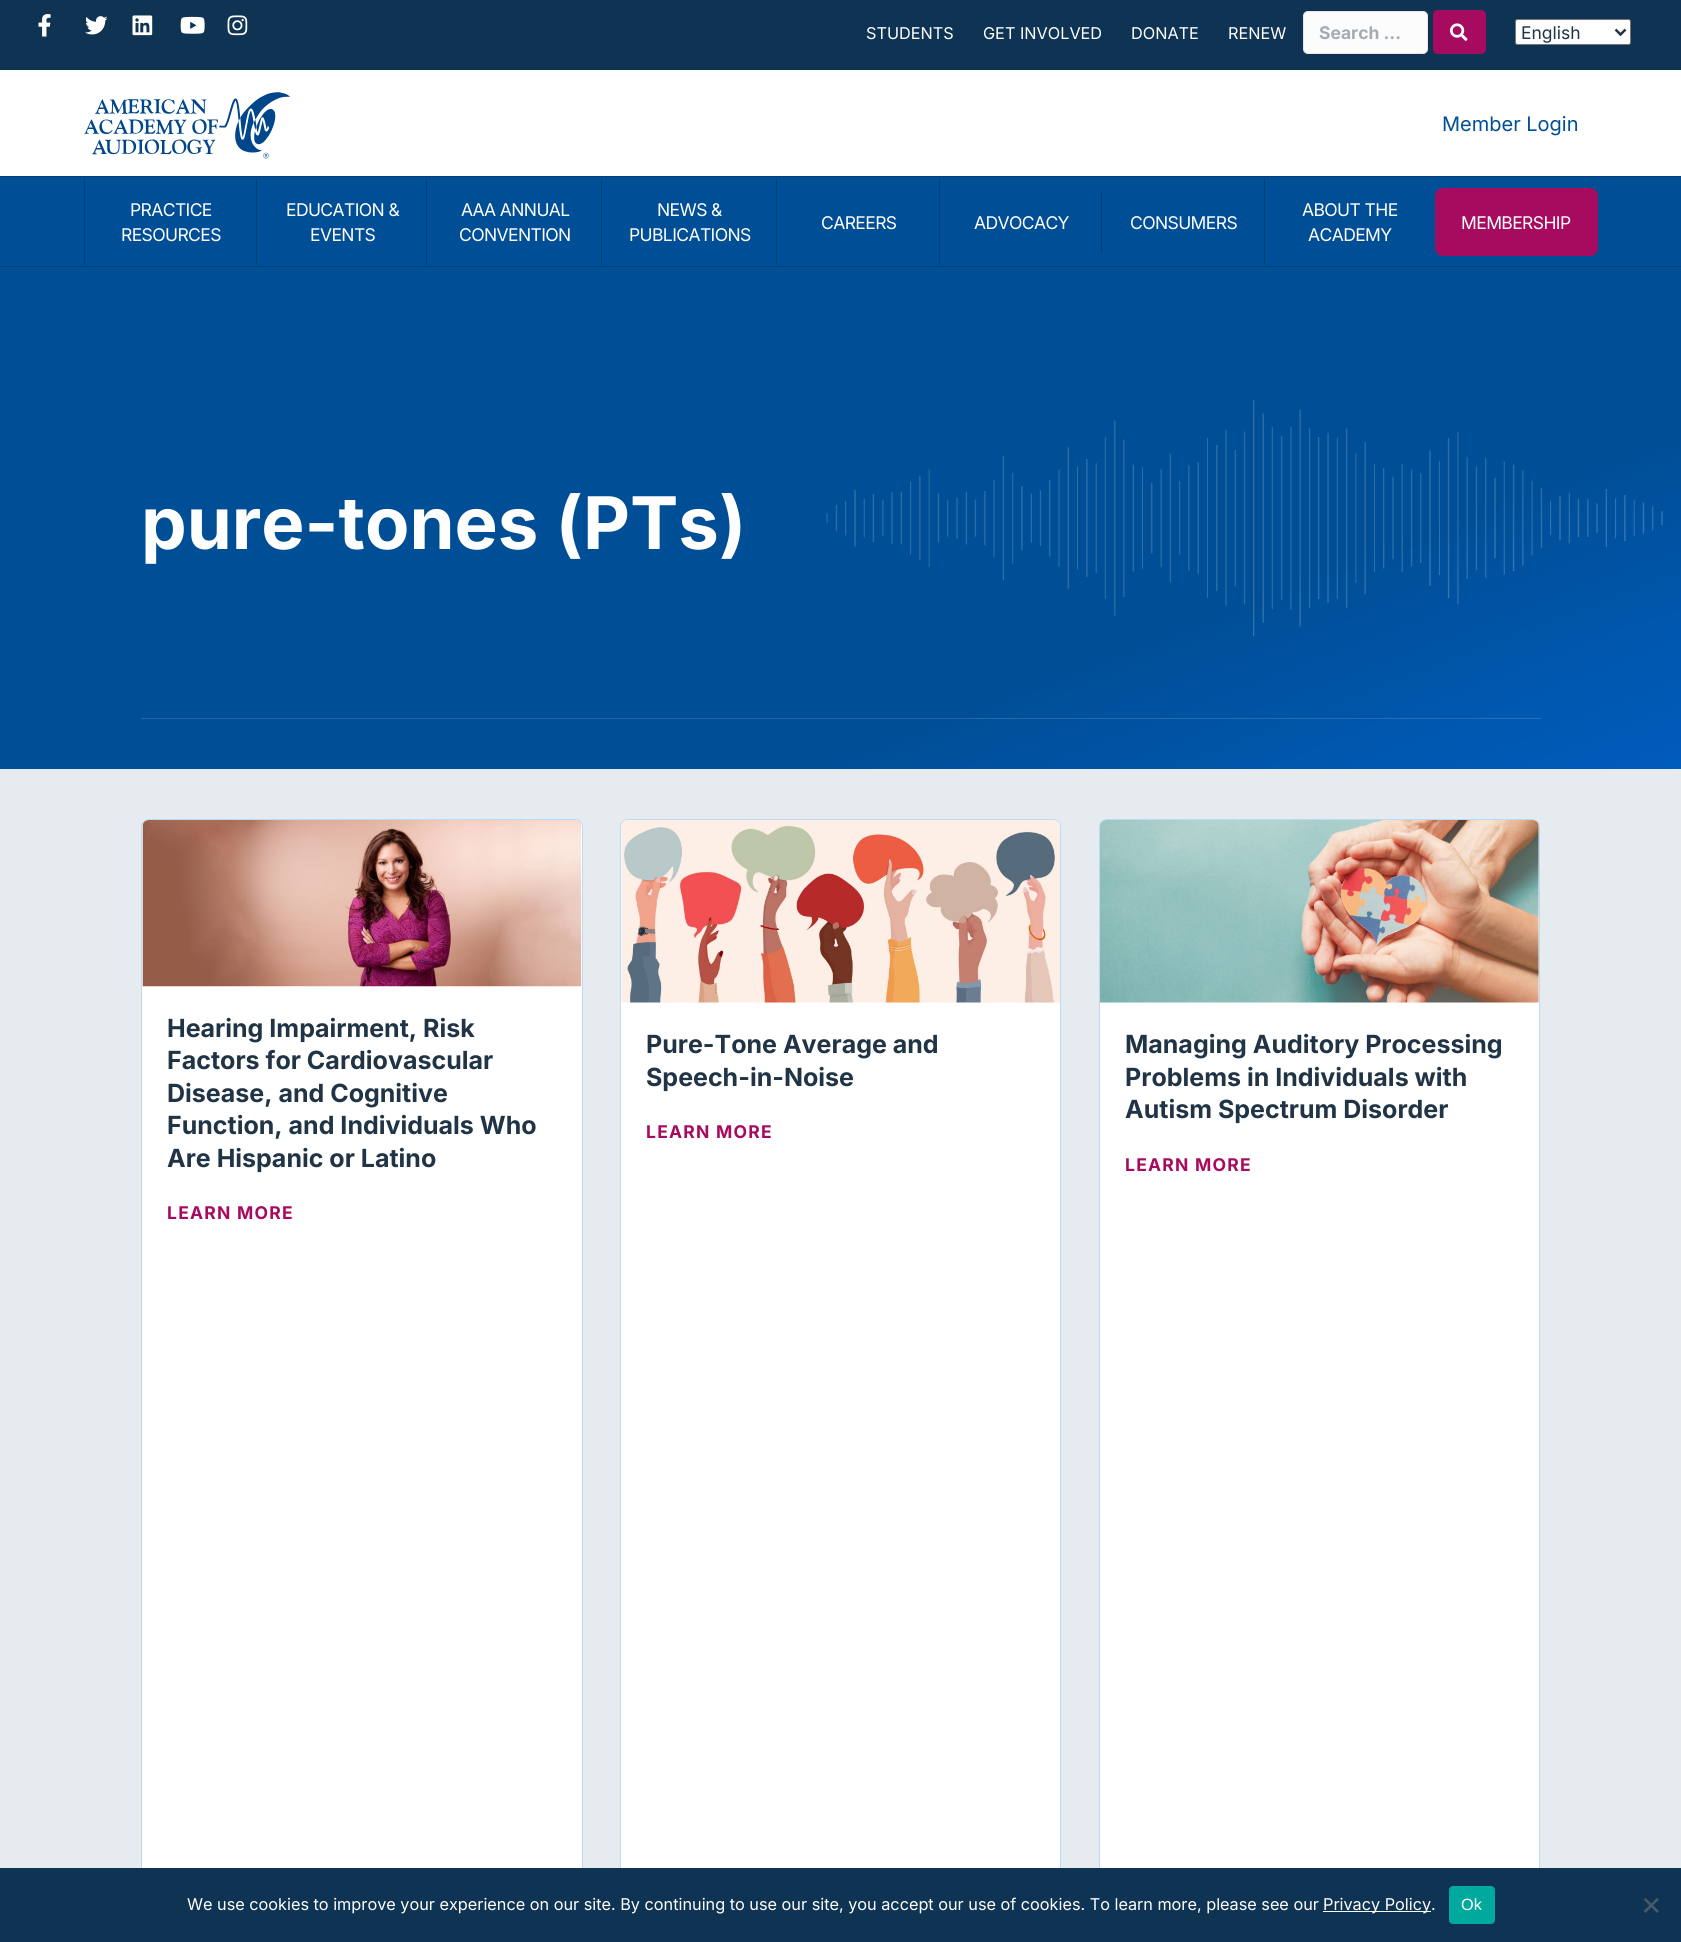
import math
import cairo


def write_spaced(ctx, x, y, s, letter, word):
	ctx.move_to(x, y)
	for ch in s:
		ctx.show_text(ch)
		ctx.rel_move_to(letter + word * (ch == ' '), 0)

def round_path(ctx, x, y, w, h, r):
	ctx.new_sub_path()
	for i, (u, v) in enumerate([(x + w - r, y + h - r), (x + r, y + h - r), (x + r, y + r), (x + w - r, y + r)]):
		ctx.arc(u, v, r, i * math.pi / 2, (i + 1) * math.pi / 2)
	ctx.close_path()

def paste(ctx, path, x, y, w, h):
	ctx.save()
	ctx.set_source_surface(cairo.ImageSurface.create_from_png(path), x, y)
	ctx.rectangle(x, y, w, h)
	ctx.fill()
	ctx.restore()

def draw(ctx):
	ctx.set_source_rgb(1, 1, 1)
	ctx.paint()
	ctx.set_source_rgb(0.055, 0.2, 0.325)
	ctx.rectangle(0, 0, 1681, 70)
	ctx.fill()
	paste(ctx, 'media/1.png', 38, 14, 13, 23)
	paste(ctx, 'media/2.png', 85, 16, 23, 19)
	paste(ctx, 'media/3.png', 132, 15, 21, 21)
	paste(ctx, 'media/4.png', 180, 16, 25, 18)
	paste(ctx, 'media/5.png', 227, 15, 21, 21)
	ctx.select_font_face('Inter')
	ctx.set_font_size(16.25)
	ctx.set_source_rgb(1, 1, 1)
	for x, y, s in [
		(866, 39, 'STUDENTS'),
		(983, 39, 'GET INVOLVED'),
		(1131, 39, 'DONATE'),
		(1228, 39, 'RENEW'),
	]:
		ctx.move_to(x, y)
		ctx.show_text(s)
	ctx.set_source_rgb(0.988, 0.988, 0.988)
	round_path(ctx, 1303.5, 11.5, 124, 42, 4.5)
	ctx.fill_preserve()
	ctx.set_source_rgb(0.902, 0.902, 0.902)
	ctx.set_line_width(1)
	ctx.stroke()
	ctx.select_font_face('Inter', cairo.FONT_SLANT_NORMAL, cairo.FONT_WEIGHT_BOLD)
	ctx.set_font_size(17.5)
	ctx.set_source_rgb(0.643, 0.675, 0.702)
	ctx.move_to(1319, 39)
	ctx.show_text('Search …')
	ctx.set_source_rgb(0.651, 0.043, 0.373)
	round_path(ctx, 1433, 10, 53, 44, 5)
	ctx.fill()
	paste(ctx, 'media/6.png', 1450, 23, 18, 18)
	ctx.set_source_rgb(1, 1, 1)
	round_path(ctx, 1515.5, 19.5, 115, 25, 2)
	ctx.fill_preserve()
	ctx.set_source_rgb(0.463, 0.463, 0.463)
	ctx.stroke()
	ctx.new_path()
	ctx.move_to(1615.5, 29.5)
	ctx.line_to(1620.5, 34.5)
	ctx.line_to(1625.5, 29.5)
	ctx.set_source_rgb(0.125, 0.204, 0.275)
	ctx.set_line_width(2.5)
	ctx.stroke()
	ctx.select_font_face('Inter')
	ctx.move_to(1521, 39)
	ctx.show_text('English')
	paste(ctx, 'media/7.png', 84, 92, 206, 67)
	ctx.set_font_size(20)
	ctx.set_source_rgb(0, 0.306, 0.584)
	ctx.move_to(1442, 131)
	ctx.show_text('Member Login')
	ctx.set_source_rgb(0, 0.243, 0.467)
	ctx.rectangle(0, 176, 1681, 1)
	ctx.fill()
	ctx.set_source_rgb(0, 0.306, 0.584)
	ctx.rectangle(0, 177, 1681, 592)
	ctx.fill()
	ctx.set_source_rgb(0, 0.243, 0.467)
	ctx.rectangle(0, 266, 1681, 1)
	ctx.fill()
	ctx.set_source_rgb(0, 0.251, 0.478)
	ctx.rectangle(84, 179, 1, 86)
	ctx.fill()
	ctx.set_font_size(17.5)
	ctx.set_source_rgb(1, 1, 1)
	write_spaced(ctx, 130, 216, 'PRACTICE', -0.6, 0)
	write_spaced(ctx, 121, 241, 'RESOURCES', -0.6, 0)
	ctx.set_source_rgb(0, 0.251, 0.478)
	ctx.rectangle(256, 179, 1, 86)
	ctx.fill()
	ctx.set_source_rgb(1, 1, 1)
	write_spaced(ctx, 286, 216, 'EDUCATION &', -0.6, 0)
	write_spaced(ctx, 310, 241, 'EVENTS', -0.6, 0)
	ctx.set_source_rgb(0, 0.251, 0.478)
	ctx.rectangle(426, 179, 1, 86)
	ctx.fill()
	ctx.set_source_rgb(1, 1, 1)
	write_spaced(ctx, 461, 216, 'AAA ANNUAL', -0.6, 0)
	write_spaced(ctx, 459, 241, 'CONVENTION', -0.6, 0)
	ctx.set_source_rgb(0, 0.251, 0.478)
	ctx.rectangle(601, 179, 1, 86)
	ctx.fill()
	ctx.set_source_rgb(1, 1, 1)
	write_spaced(ctx, 657, 216, 'NEWS &', -0.6, 0)
	write_spaced(ctx, 629, 241, 'PUBLICATIONS', -0.6, 0)
	ctx.set_source_rgb(0, 0.251, 0.478)
	ctx.rectangle(776, 179, 1, 86)
	ctx.fill()
	ctx.set_source_rgb(1, 1, 1)
	write_spaced(ctx, 821, 229, 'CAREERS', -0.6, 0)
	ctx.set_source_rgb(0, 0.251, 0.478)
	ctx.rectangle(939, 179, 1, 86)
	ctx.fill()
	ctx.set_source_rgb(1, 1, 1)
	write_spaced(ctx, 974, 229, 'ADVOCACY', -0.6, 0)
	ctx.set_source_rgb(0, 0.251, 0.478)
	ctx.rectangle(1101, 191, 1, 62)
	ctx.fill()
	ctx.set_source_rgb(1, 1, 1)
	write_spaced(ctx, 1130, 229, 'CONSUMERS', -0.6, 0)
	ctx.set_source_rgb(0, 0.251, 0.478)
	ctx.rectangle(1264, 179, 1, 86)
	ctx.fill()
	ctx.set_source_rgb(1, 1, 1)
	write_spaced(ctx, 1302, 216, 'ABOUT THE', -0.6, 0)
	write_spaced(ctx, 1308, 241, 'ACADEMY', -0.6, 0)
	ctx.set_source_rgb(0.651, 0.043, 0.373)
	round_path(ctx, 1435, 188, 163, 68, 8)
	ctx.fill()
	ctx.set_source_rgb(1, 1, 1)
	write_spaced(ctx, 1461, 229, 'MEMBERSHIP', -0.6, 0)
	paste(ctx, 'media/8.png', 826, 400, 837, 237)
	ctx.select_font_face('Inter', cairo.FONT_SLANT_NORMAL, cairo.FONT_WEIGHT_BOLD)
	ctx.set_font_size(72.5)
	ctx.move_to(141, 549)
	ctx.show_text('pure-tones (PTs)')
	gradient = cairo.LinearGradient(649, 18, 1032, 1018)
	gradient.add_color_stop_rgba(0.7, 0, 0.306, 0.584, 0.82)
	gradient.add_color_stop_rgba(1, 0, 0.384, 0.8, 0.71)
	ctx.set_source(gradient)
	ctx.rectangle(826, 400, 855, 369)
	ctx.fill()
	ctx.set_source_rgba(1, 1, 1, 0.14)
	ctx.rectangle(141, 718, 1400, 1)
	ctx.fill()
	ctx.set_source_rgb(0.898, 0.918, 0.937)
	ctx.rectangle(0, 769, 1681, 1099)
	ctx.fill()
	ctx.set_source_rgb(1, 1, 1)
	round_path(ctx, 141.5, 819.5, 441, 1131, 7.5)
	ctx.fill_preserve()
	ctx.set_source_rgb(0.741, 0.851, 0.953)
	ctx.set_line_width(1)
	ctx.stroke()
	paste(ctx, 'media/9.png', 142, 820, 440, 167)
	ctx.set_font_size(25)
	ctx.set_source_rgb(0.125, 0.204, 0.275)
	for x, y, s in [
		(167, 1037, 'Hearing Impairment, Risk'),
		(167, 1069, 'Factors for Cardiovascular'),
		(167, 1102, 'Disease, and Cognitive'),
		(167, 1134, 'Function, and Individuals Who'),
		(167, 1167, 'Are Hispanic or Latino'),
	]:
		ctx.move_to(x, y)
		ctx.show_text(s)
	ctx.set_font_size(17.5)
	ctx.set_source_rgb(0.651, 0.043, 0.373)
	write_spaced(ctx, 167, 1219, 'LEARN MORE', 1.25, 0)
	ctx.set_source_rgb(1, 1, 1)
	round_path(ctx, 620.5, 819.5, 440, 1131, 7.5)
	ctx.fill_preserve()
	ctx.set_source_rgb(0.741, 0.851, 0.953)
	ctx.stroke()
	paste(ctx, 'media/10.png', 621, 820, 439, 183)
	ctx.set_font_size(25)
	ctx.set_source_rgb(0.125, 0.204, 0.275)
	ctx.move_to(646, 1053)
	ctx.show_text('Pure-Tone Average and')
	ctx.move_to(646, 1086)
	ctx.show_text('Speech-in-Noise')
	ctx.set_font_size(17.5)
	ctx.set_source_rgb(0.651, 0.043, 0.373)
	write_spaced(ctx, 646, 1138, 'LEARN MORE', 1.25, 0)
	ctx.set_source_rgb(1, 1, 1)
	round_path(ctx, 1099.5, 819.5, 440, 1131, 7.5)
	ctx.fill_preserve()
	ctx.set_source_rgb(0.741, 0.851, 0.953)
	ctx.stroke()
	paste(ctx, 'media/11.png', 1100, 820, 439, 183)
	ctx.set_font_size(25)
	ctx.set_source_rgb(0.125, 0.204, 0.275)
	for x, y, s in [
		(1125, 1053, 'Managing Auditory Processing'),
		(1125, 1086, 'Problems in Individuals with'),
		(1125, 1118, 'Autism Spectrum Disorder'),
	]:
		ctx.move_to(x, y)
		ctx.show_text(s)
	ctx.set_font_size(17.5)
	ctx.set_source_rgb(0.651, 0.043, 0.373)
	write_spaced(ctx, 1125, 1171, 'LEARN MORE', 1.25, 0)
	ctx.set_source_rgb(0.055, 0.2, 0.325)
	ctx.rectangle(0, 1868, 1681, 74)
	ctx.fill()
	ctx.select_font_face('Inter')
	ctx.set_font_size(16.25)
	ctx.set_source_rgb(1, 1, 1)
	ctx.move_to(187, 1910)
	ctx.show_text('We use cookies to improve your experience on our site. By continuing to use our site, you accept our use of cookies. To learn more, please see our')
	ctx.rectangle(1323, 1911, 108, 1)
	ctx.fill()
	ctx.move_to(1323, 1910)
	ctx.show_text('Privacy Policy.')
	ctx.set_source_rgb(0, 0.663, 0.616)
	round_path(ctx, 1449, 1886, 46, 38, 4)
	ctx.fill()
	ctx.select_font_face('Liberation Sans')
	ctx.set_source_rgb(1, 1, 1)
	ctx.move_to(1461, 1910)
	ctx.show_text('Ok')
	ctx.set_source_rgb(0.278, 0.353, 0.416)
	ctx.new_path()
	ctx.move_to(1657, 1898)
	ctx.line_to(1659, 1899.5)
	ctx.line_to(1645.5, 1913)
	ctx.line_to(1643.5, 1911)
	ctx.close_path()
	ctx.fill()
	ctx.new_path()
	ctx.move_to(1643.5, 1899.5)
	ctx.line_to(1645.5, 1898)
	ctx.line_to(1659, 1911)
	ctx.line_to(1657, 1913)
	ctx.close_path()
	ctx.fill()


surface = cairo.ImageSurface(cairo.FORMAT_RGB24, 1681, 1942)
ctx = cairo.Context(surface)
options = cairo.FontOptions()
options.set_hint_metrics(cairo.HINT_METRICS_OFF)
options.set_hint_style(cairo.HINT_STYLE_NONE)
ctx.set_font_options(options)
ctx.set_miter_limit(4)
draw(ctx)
surface.write_to_png('image.png')
